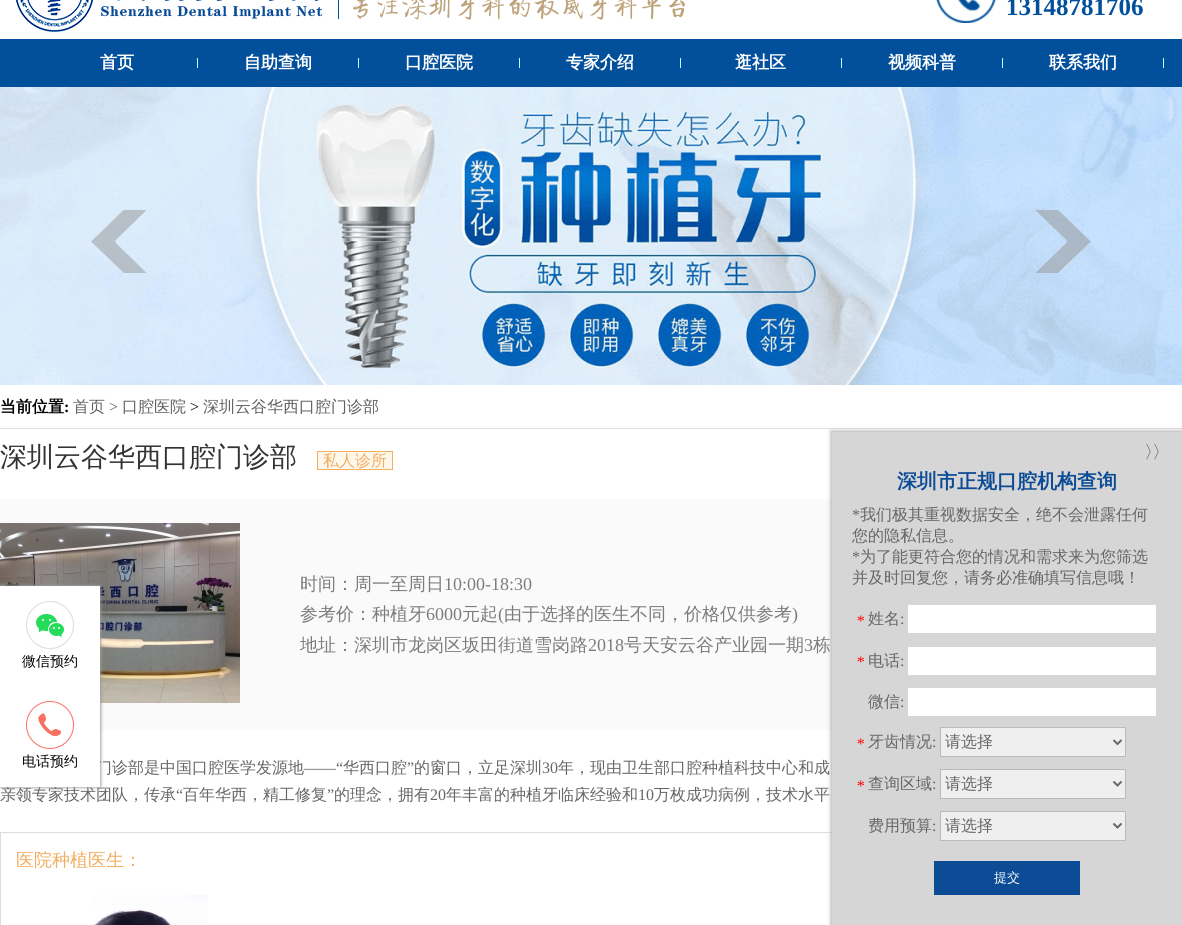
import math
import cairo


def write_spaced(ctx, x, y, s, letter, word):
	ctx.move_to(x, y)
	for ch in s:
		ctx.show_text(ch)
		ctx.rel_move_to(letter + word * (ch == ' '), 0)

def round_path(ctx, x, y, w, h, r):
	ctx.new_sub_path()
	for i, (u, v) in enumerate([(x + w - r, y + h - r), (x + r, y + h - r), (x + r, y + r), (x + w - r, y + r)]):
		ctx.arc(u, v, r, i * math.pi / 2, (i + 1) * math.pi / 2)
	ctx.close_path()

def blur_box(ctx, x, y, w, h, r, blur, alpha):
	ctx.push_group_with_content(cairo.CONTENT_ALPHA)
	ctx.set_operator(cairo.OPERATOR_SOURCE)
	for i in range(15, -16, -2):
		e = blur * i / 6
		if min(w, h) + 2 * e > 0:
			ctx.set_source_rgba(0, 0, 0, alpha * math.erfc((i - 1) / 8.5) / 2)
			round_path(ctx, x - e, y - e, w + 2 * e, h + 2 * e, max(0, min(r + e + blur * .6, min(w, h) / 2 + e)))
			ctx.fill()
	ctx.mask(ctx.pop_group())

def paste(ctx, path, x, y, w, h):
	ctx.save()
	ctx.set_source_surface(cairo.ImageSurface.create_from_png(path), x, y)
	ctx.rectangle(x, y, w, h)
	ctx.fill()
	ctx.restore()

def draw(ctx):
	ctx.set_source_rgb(1, 1, 1)
	ctx.paint()
	paste(ctx, 'media/1.png', 15, 0, 670, 32)
	paste(ctx, 'media/2.png', 936, 0, 60, 23)
	ctx.select_font_face('Liberation Serif', cairo.FONT_SLANT_NORMAL, cairo.FONT_WEIGHT_BOLD)
	ctx.set_font_size(25)
	ctx.set_source_rgb(0.008, 0.314, 0.608)
	ctx.move_to(1006, 15)
	ctx.show_text('13148781706')
	ctx.rectangle(0, 39, 1182, 48)
	ctx.fill()
	ctx.select_font_face('WenQuanYi Zen Hei', cairo.FONT_SLANT_NORMAL, cairo.FONT_WEIGHT_BOLD)
	ctx.set_font_size(17)
	ctx.set_source_rgb(1, 1, 1)
	ctx.move_to(100, 68)
	ctx.show_text('首页')
	ctx.set_source_rgb(0.714, 1, 0.984)
	ctx.rectangle(197, 58, 1, 10)
	ctx.fill()
	ctx.set_source_rgb(1, 1, 1)
	ctx.move_to(244, 68)
	ctx.show_text('自助查询')
	ctx.set_source_rgb(0.714, 1, 0.984)
	ctx.rectangle(358, 58, 1, 10)
	ctx.fill()
	ctx.set_source_rgb(1, 1, 1)
	ctx.move_to(405, 68)
	ctx.show_text('口腔医院')
	ctx.set_source_rgb(0.714, 1, 0.984)
	ctx.rectangle(519, 58, 1, 10)
	ctx.fill()
	ctx.set_source_rgb(1, 1, 1)
	ctx.move_to(566, 68)
	ctx.show_text('专家介绍')
	ctx.set_source_rgb(0.714, 1, 0.984)
	ctx.rectangle(680, 58, 1, 10)
	ctx.fill()
	ctx.set_source_rgb(1, 1, 1)
	ctx.move_to(735, 68)
	ctx.show_text('逛社区')
	ctx.set_source_rgb(0.714, 1, 0.984)
	ctx.rectangle(841, 58, 1, 10)
	ctx.fill()
	ctx.set_source_rgb(1, 1, 1)
	ctx.move_to(888, 68)
	ctx.show_text('视频科普')
	ctx.set_source_rgb(0.714, 1, 0.984)
	ctx.rectangle(1002, 58, 1, 10)
	ctx.fill()
	ctx.set_source_rgb(1, 1, 1)
	ctx.move_to(1049, 68)
	ctx.show_text('联系我们')
	ctx.set_source_rgb(0.714, 1, 0.984)
	ctx.rectangle(1163, 58, 1, 10)
	ctx.fill()
	paste(ctx, 'media/3.png', 0, 87, 1182, 298)
	paste(ctx, 'media/4.png', 91, 210, 55, 63)
	paste(ctx, 'media/5.png', 1036, 210, 55, 63)
	ctx.set_source_rgb(0.867, 0.867, 0.867)
	ctx.rectangle(0, 428, 1182, 1)
	ctx.fill()
	ctx.set_font_size(16)
	ctx.set_source_rgb(0, 0, 0)
	ctx.move_to(0, 412)
	ctx.show_text('当前位置')
	ctx.select_font_face('Liberation Serif', cairo.FONT_SLANT_NORMAL, cairo.FONT_WEIGHT_BOLD)
	ctx.move_to(64, 412)
	ctx.show_text(':')
	ctx.select_font_face('WenQuanYi Zen Hei Medium')
	ctx.set_source_rgb(0.376, 0.376, 0.376)
	ctx.move_to(73, 412)
	ctx.show_text('首页')
	ctx.select_font_face('Liberation Serif')
	ctx.move_to(109, 412)
	ctx.show_text('>')
	ctx.select_font_face('WenQuanYi Zen Hei Medium')
	ctx.move_to(122, 412)
	ctx.show_text('口腔医院')
	ctx.select_font_face('Liberation Serif')
	ctx.set_source_rgb(0, 0, 0)
	ctx.move_to(190, 412)
	ctx.show_text('>')
	ctx.select_font_face('WenQuanYi Zen Hei Medium')
	ctx.set_source_rgb(0.376, 0.376, 0.376)
	ctx.move_to(203, 412)
	ctx.show_text('深圳云谷华西口腔门诊部')
	ctx.set_font_size(27)
	ctx.set_source_rgb(0.2, 0.2, 0.2)
	ctx.move_to(0, 466)
	ctx.show_text('深圳云谷华西口腔门诊部')
	ctx.set_source_rgb(0.996, 0.965, 0.925)
	ctx.rectangle(317.5, 451.5, 75, 18)
	ctx.fill_preserve()
	ctx.set_source_rgb(0.953, 0.678, 0.369)
	ctx.set_line_width(1)
	ctx.stroke()
	ctx.set_font_size(16)
	ctx.move_to(323, 466)
	ctx.show_text('私人诊所')
	ctx.set_source_rgb(0.98, 0.98, 0.98)
	ctx.rectangle(0, 499, 832, 231)
	ctx.fill()
	paste(ctx, 'media/6.png', 0, 523, 240, 180)
	ctx.set_font_size(18)
	ctx.set_source_rgb(0.486, 0.486, 0.486)
	ctx.move_to(300, 590)
	ctx.show_text('时间：周一至周日')
	ctx.select_font_face('Liberation Serif')
	ctx.move_to(444, 590)
	ctx.show_text('10:00-18:30')
	ctx.select_font_face('WenQuanYi Zen Hei Medium')
	ctx.move_to(300, 620)
	ctx.show_text('参考价：种植牙')
	ctx.select_font_face('Liberation Serif')
	ctx.move_to(426, 620)
	ctx.show_text('6000')
	ctx.select_font_face('WenQuanYi Zen Hei Medium')
	ctx.move_to(462, 620)
	ctx.show_text('元起')
	ctx.select_font_face('Liberation Serif')
	ctx.move_to(498, 620)
	ctx.show_text('(')
	ctx.select_font_face('WenQuanYi Zen Hei Medium')
	ctx.move_to(504, 620)
	ctx.show_text('由于选择的医生不同，价格仅供参考')
	ctx.select_font_face('Liberation Serif')
	ctx.move_to(792, 620)
	ctx.show_text(')')
	ctx.select_font_face('WenQuanYi Zen Hei Medium')
	ctx.move_to(300, 651)
	ctx.show_text('地址：深圳市龙岗区坂田街道雪岗路')
	ctx.select_font_face('Liberation Serif')
	ctx.move_to(588, 651)
	ctx.show_text('2018')
	ctx.select_font_face('WenQuanYi Zen Hei Medium')
	ctx.move_to(624, 651)
	ctx.show_text('号天安云谷产业园一期')
	ctx.select_font_face('Liberation Serif')
	ctx.move_to(804, 651)
	ctx.show_text('3')
	ctx.select_font_face('WenQuanYi Zen Hei Medium')
	ctx.move_to(813, 651)
	ctx.show_text('栋')
	ctx.set_font_size(16)
	ctx.set_source_rgb(0.4, 0.4, 0.4)
	ctx.move_to(96, 773)
	ctx.show_text('门诊部是中国口腔医学发源地')
	ctx.select_font_face('Liberation Serif')
	ctx.move_to(304, 773)
	ctx.show_text('——“')
	ctx.select_font_face('WenQuanYi Zen Hei Medium')
	ctx.move_to(343, 773)
	ctx.show_text('华西口腔')
	ctx.select_font_face('Liberation Serif')
	ctx.move_to(407, 773)
	ctx.show_text('”')
	ctx.select_font_face('WenQuanYi Zen Hei Medium')
	ctx.move_to(414, 773)
	ctx.show_text('的窗口，立足深圳')
	ctx.select_font_face('Liberation Serif')
	ctx.move_to(542, 773)
	ctx.show_text('30')
	ctx.select_font_face('WenQuanYi Zen Hei Medium')
	ctx.move_to(558, 773)
	ctx.show_text('年，现由卫生部口腔种植科技中心和成')
	ctx.move_to(0, 800)
	ctx.show_text('亲领专家技术团队，传承')
	ctx.select_font_face('Liberation Serif')
	ctx.move_to(176, 800)
	ctx.show_text('“')
	ctx.select_font_face('WenQuanYi Zen Hei Medium')
	ctx.move_to(183, 800)
	ctx.show_text('百年华西，精工修复')
	ctx.select_font_face('Liberation Serif')
	ctx.move_to(327, 800)
	ctx.show_text('”')
	ctx.select_font_face('WenQuanYi Zen Hei Medium')
	ctx.move_to(334, 800)
	ctx.show_text('的理念，拥有')
	ctx.select_font_face('Liberation Serif')
	ctx.move_to(430, 800)
	ctx.show_text('20')
	ctx.select_font_face('WenQuanYi Zen Hei Medium')
	ctx.move_to(446, 800)
	ctx.show_text('年丰富的种植牙临床经验和')
	ctx.select_font_face('Liberation Serif')
	ctx.move_to(638, 800)
	ctx.show_text('10')
	ctx.select_font_face('WenQuanYi Zen Hei Medium')
	ctx.move_to(654, 800)
	ctx.show_text('万枚成功病例，技术水平')
	ctx.rectangle(0.5, 832.5, 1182, 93)
	ctx.set_source_rgb(0.867, 0.867, 0.867)
	ctx.stroke()
	ctx.set_source_rgb(0.667, 0.655, 0.655)
	blur_box(ctx, 831, 431, 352, 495, 0, 2, 1)
	ctx.set_source_rgb(0.839, 0.839, 0.839)
	ctx.rectangle(832, 432, 350, 493)
	ctx.fill()
	ctx.set_font_size(18)
	ctx.set_source_rgb(0.4, 0.4, 0.4)
	write_spaced(ctx, 1144, 458, '〉〉', -10, 0)
	ctx.select_font_face('WenQuanYi Zen Hei', cairo.FONT_SLANT_NORMAL, cairo.FONT_WEIGHT_BOLD)
	ctx.set_font_size(20)
	ctx.set_source_rgb(0.047, 0.298, 0.588)
	ctx.move_to(897, 488)
	ctx.show_text('深圳市正规口腔机构查询')
	ctx.select_font_face('Liberation Serif')
	ctx.set_font_size(16)
	ctx.set_source_rgb(0.4, 0.4, 0.4)
	ctx.move_to(852, 520)
	ctx.show_text('*')
	ctx.select_font_face('WenQuanYi Zen Hei Medium')
	ctx.move_to(860, 520)
	ctx.show_text('我们极其重视数据安全，绝不会泄露任何')
	ctx.move_to(852, 541)
	ctx.show_text('您的隐私信息。')
	ctx.select_font_face('Liberation Serif')
	ctx.move_to(852, 562)
	ctx.show_text('*')
	ctx.select_font_face('WenQuanYi Zen Hei Medium')
	ctx.move_to(860, 562)
	ctx.show_text('为了能更符合您的情况和需求来为您筛选')
	ctx.move_to(852, 583)
	ctx.show_text('并及时回复您，请务必准确填写信息哦！')
	ctx.select_font_face('Liberation Serif', cairo.FONT_SLANT_ITALIC)
	ctx.set_source_rgb(1, 0, 0)
	ctx.move_to(856, 626)
	ctx.show_text('*')
	ctx.select_font_face('WenQuanYi Zen Hei Medium')
	ctx.set_source_rgb(0.4, 0.4, 0.4)
	ctx.move_to(868, 624)
	ctx.show_text('姓名')
	ctx.select_font_face('Liberation Serif')
	ctx.move_to(900, 624)
	ctx.show_text(':')
	ctx.set_source_rgb(1, 1, 1)
	ctx.rectangle(908, 605, 248, 28)
	ctx.fill()
	ctx.select_font_face('Liberation Serif', cairo.FONT_SLANT_ITALIC)
	ctx.set_source_rgb(1, 0, 0)
	ctx.move_to(856, 667)
	ctx.show_text('*')
	ctx.select_font_face('WenQuanYi Zen Hei Medium')
	ctx.set_source_rgb(0.4, 0.4, 0.4)
	ctx.move_to(868, 666)
	ctx.show_text('电话')
	ctx.select_font_face('Liberation Serif')
	ctx.move_to(900, 666)
	ctx.show_text(':')
	ctx.set_source_rgb(1, 1, 1)
	ctx.rectangle(908, 647, 248, 28)
	ctx.fill()
	ctx.select_font_face('WenQuanYi Zen Hei Medium')
	ctx.set_source_rgb(0.4, 0.4, 0.4)
	ctx.move_to(868, 707)
	ctx.show_text('微信')
	ctx.select_font_face('Liberation Serif')
	ctx.move_to(900, 707)
	ctx.show_text(':')
	ctx.set_source_rgb(1, 1, 1)
	ctx.rectangle(908, 688, 248, 28)
	ctx.fill()
	ctx.select_font_face('Liberation Serif', cairo.FONT_SLANT_ITALIC)
	ctx.set_source_rgb(1, 0, 0)
	ctx.move_to(856, 749)
	ctx.show_text('*')
	ctx.select_font_face('WenQuanYi Zen Hei Medium')
	ctx.set_source_rgb(0.4, 0.4, 0.4)
	ctx.move_to(868, 747)
	ctx.show_text('牙齿情况')
	ctx.select_font_face('Liberation Serif')
	ctx.move_to(932, 747)
	ctx.show_text(':')
	ctx.set_source_rgb(0.937, 0.937, 0.937)
	ctx.rectangle(940.5, 727.5, 185, 29)
	ctx.fill_preserve()
	ctx.set_source_rgb(0.729, 0.729, 0.729)
	ctx.stroke()
	ctx.new_path()
	ctx.move_to(1113.5, 740)
	ctx.line_to(1117.5, 744)
	ctx.line_to(1121.5, 740)
	ctx.set_source_rgb(0.4, 0.4, 0.4)
	ctx.set_line_width(2)
	ctx.stroke()
	ctx.select_font_face('WenQuanYi Zen Hei Medium')
	ctx.move_to(945, 747)
	ctx.show_text('请选择')
	ctx.select_font_face('Liberation Serif', cairo.FONT_SLANT_ITALIC)
	ctx.set_source_rgb(1, 0, 0)
	ctx.move_to(856, 791)
	ctx.show_text('*')
	ctx.select_font_face('WenQuanYi Zen Hei Medium')
	ctx.set_source_rgb(0.4, 0.4, 0.4)
	ctx.move_to(868, 789)
	ctx.show_text('查询区域')
	ctx.select_font_face('Liberation Serif')
	ctx.move_to(932, 789)
	ctx.show_text(':')
	ctx.set_source_rgb(0.937, 0.937, 0.937)
	ctx.rectangle(940.5, 769.5, 185, 29)
	ctx.fill_preserve()
	ctx.set_source_rgb(0.729, 0.729, 0.729)
	ctx.set_line_width(1)
	ctx.stroke()
	ctx.new_path()
	ctx.move_to(1113.5, 781.5)
	ctx.line_to(1117.5, 785.5)
	ctx.line_to(1121.5, 781.5)
	ctx.set_source_rgb(0.4, 0.4, 0.4)
	ctx.set_line_width(2)
	ctx.stroke()
	ctx.select_font_face('WenQuanYi Zen Hei Medium')
	ctx.move_to(945, 789)
	ctx.show_text('请选择')
	ctx.move_to(868, 831)
	ctx.show_text('费用预算')
	ctx.select_font_face('Liberation Serif')
	ctx.move_to(932, 831)
	ctx.show_text(':')
	ctx.set_source_rgb(0.937, 0.937, 0.937)
	ctx.rectangle(940.5, 811.5, 185, 29)
	ctx.fill_preserve()
	ctx.set_source_rgb(0.729, 0.729, 0.729)
	ctx.set_line_width(1)
	ctx.stroke()
	ctx.new_path()
	ctx.move_to(1113.5, 823.5)
	ctx.line_to(1117.5, 827.5)
	ctx.line_to(1121.5, 823.5)
	ctx.set_source_rgb(0.4, 0.4, 0.4)
	ctx.set_line_width(2)
	ctx.stroke()
	ctx.select_font_face('WenQuanYi Zen Hei Medium')
	ctx.move_to(945, 831)
	ctx.show_text('请选择')
	ctx.set_source_rgb(0.047, 0.298, 0.588)
	ctx.rectangle(934, 861, 146, 34)
	ctx.fill()
	ctx.set_font_size(13)
	ctx.set_source_rgb(1, 1, 1)
	ctx.move_to(994, 882)
	ctx.show_text('提交')
	ctx.set_source_rgb(0.6, 0.6, 0.6)
	blur_box(ctx, 0, 586, 100, 200, 0, 2, 1)
	blur_box(ctx, 0, 586, 100, 101, 0, 1.5, 1)
	blur_box(ctx, 0, 686, 100, 101, 0, 1.5, 1)
	ctx.set_source_rgb(1, 1, 1)
	ctx.rectangle(0, 586, 100, 200)
	ctx.fill()
	paste(ctx, 'media/7.png', 26, 601, 48, 48)
	ctx.set_font_size(14)
	ctx.set_source_rgb(0, 0, 0)
	ctx.move_to(22, 666)
	ctx.show_text('微信预约')
	ctx.set_source_rgb(1, 1, 1)
	ctx.rectangle(0, 786, 100, 1)
	ctx.fill()
	paste(ctx, 'media/8.png', 26, 701, 48, 48)
	ctx.set_source_rgb(0, 0, 0)
	ctx.move_to(22, 766)
	ctx.show_text('电话预约')
	ctx.set_font_size(18)
	ctx.set_source_rgb(0.953, 0.678, 0.369)
	ctx.move_to(16, 866)
	ctx.show_text('医院种植医生：')
	paste(ctx, 'media/9.png', 94, 895, 114, 30)


surface = cairo.ImageSurface(cairo.FORMAT_RGB24, 1182, 925)
ctx = cairo.Context(surface)
options = cairo.FontOptions()
options.set_hint_metrics(cairo.HINT_METRICS_OFF)
options.set_hint_style(cairo.HINT_STYLE_NONE)
ctx.set_font_options(options)
ctx.set_miter_limit(4)
draw(ctx)
surface.write_to_png('image.png')
